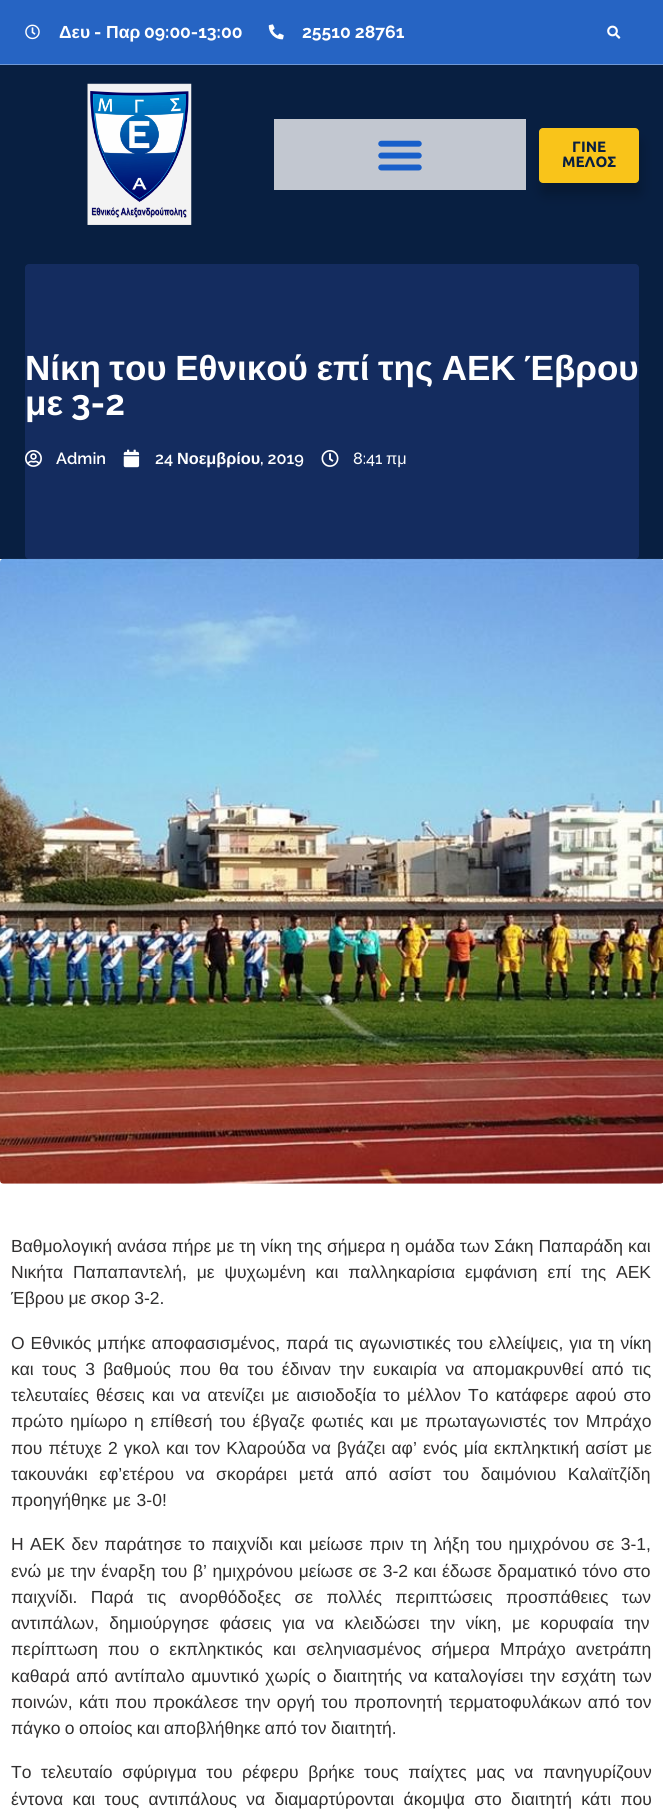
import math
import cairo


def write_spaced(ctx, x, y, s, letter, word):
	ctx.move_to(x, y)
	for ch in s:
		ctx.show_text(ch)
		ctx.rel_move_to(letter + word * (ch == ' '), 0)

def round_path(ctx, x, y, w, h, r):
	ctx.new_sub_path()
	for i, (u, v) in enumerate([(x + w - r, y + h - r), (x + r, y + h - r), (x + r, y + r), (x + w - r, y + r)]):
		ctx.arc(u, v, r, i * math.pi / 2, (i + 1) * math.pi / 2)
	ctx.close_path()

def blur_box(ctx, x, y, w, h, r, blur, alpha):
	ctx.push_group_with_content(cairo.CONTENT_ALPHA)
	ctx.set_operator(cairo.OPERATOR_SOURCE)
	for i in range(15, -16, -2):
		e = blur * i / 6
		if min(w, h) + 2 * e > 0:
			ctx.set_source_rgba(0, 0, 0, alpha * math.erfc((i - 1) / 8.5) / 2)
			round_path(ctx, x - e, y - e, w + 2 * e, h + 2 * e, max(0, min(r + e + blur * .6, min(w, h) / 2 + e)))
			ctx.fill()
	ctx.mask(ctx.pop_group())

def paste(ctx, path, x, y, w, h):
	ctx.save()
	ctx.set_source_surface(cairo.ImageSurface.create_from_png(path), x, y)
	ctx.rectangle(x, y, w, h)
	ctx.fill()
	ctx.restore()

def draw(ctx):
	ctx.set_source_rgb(1, 1, 1)
	ctx.paint()
	ctx.set_source_rgb(0.149, 0.392, 0.765)
	ctx.rectangle(0, 0, 663, 64)
	ctx.fill()
	ctx.set_source_rgb(0.439, 0.6, 0.843)
	ctx.rectangle(0, 64, 663, 1)
	ctx.fill()
	paste(ctx, 'media/1.png', 25, 24, 15, 16)
	ctx.select_font_face('Liberation Sans', cairo.FONT_SLANT_NORMAL, cairo.FONT_WEIGHT_BOLD)
	ctx.set_font_size(17.5)
	ctx.set_source_rgb(1, 1, 1)
	ctx.move_to(59, 38)
	ctx.show_text('Δευ')
	ctx.select_font_face('Raleway', cairo.FONT_SLANT_NORMAL, cairo.FONT_WEIGHT_BOLD)
	ctx.move_to(94, 38)
	ctx.show_text('-')
	ctx.select_font_face('Liberation Sans', cairo.FONT_SLANT_NORMAL, cairo.FONT_WEIGHT_BOLD)
	ctx.move_to(106, 38)
	ctx.show_text('Παρ')
	ctx.select_font_face('Raleway', cairo.FONT_SLANT_NORMAL, cairo.FONT_WEIGHT_BOLD)
	ctx.move_to(144, 38)
	ctx.show_text('09:00-13:00')
	paste(ctx, 'media/2.png', 268, 24, 16, 16)
	ctx.move_to(302, 38)
	ctx.show_text('25510 28761')
	paste(ctx, 'media/3.png', 607, 25, 14, 14)
	ctx.set_source_rgb(0.035, 0.122, 0.255)
	ctx.rectangle(0, 65, 663, 494)
	ctx.fill()
	paste(ctx, 'media/4.png', 87, 83, 105, 142)
	ctx.set_source_rgb(0.761, 0.78, 0.816)
	ctx.rectangle(274, 119, 252, 71)
	ctx.fill()
	paste(ctx, 'media/5.png', 378, 140, 44, 31)
	ctx.set_source_rgb(0, 0, 0)
	blur_box(ctx, 541, 140, 100, 55, 4, 6, 0.22)
	ctx.set_source_rgb(0.976, 0.769, 0.102)
	round_path(ctx, 539, 128, 100, 55, 4)
	ctx.fill()
	ctx.select_font_face('Ubuntu', cairo.FONT_SLANT_NORMAL, cairo.FONT_WEIGHT_BOLD)
	ctx.set_font_size(15)
	ctx.set_source_rgb(0.035, 0.122, 0.255)
	ctx.move_to(572, 152)
	ctx.show_text('ΓΙΝΕ')
	ctx.move_to(562, 167)
	ctx.show_text('ΜΕΛΟΣ')
	ctx.set_source_rgb(0.082, 0.173, 0.373)
	round_path(ctx, 25, 264, 614, 295, 4)
	ctx.fill()
	ctx.select_font_face('Liberation Sans', cairo.FONT_SLANT_NORMAL, cairo.FONT_WEIGHT_BOLD)
	ctx.set_font_size(35)
	ctx.set_source_rgb(1, 1, 1)
	write_spaced(ctx, 25, 380, 'Νίκη του Εθνικού επί της ΑΕΚ Έβρου', 0, -1.25)
	ctx.move_to(25, 415)
	ctx.show_text('με')
	ctx.select_font_face('Raleway', cairo.FONT_SLANT_NORMAL, cairo.FONT_WEIGHT_BOLD)
	ctx.move_to(71, 415)
	ctx.show_text('3-2')
	paste(ctx, 'media/6.png', 25, 450, 17, 17)
	ctx.select_font_face('Raleway SemiBold')
	ctx.set_font_size(16.25)
	ctx.move_to(56, 464)
	ctx.show_text('Admin')
	paste(ctx, 'media/7.png', 123, 449, 17, 19)
	ctx.move_to(155, 464)
	ctx.show_text('24')
	ctx.select_font_face('Liberation Sans', cairo.FONT_SLANT_NORMAL, cairo.FONT_WEIGHT_BOLD)
	ctx.move_to(177, 464)
	ctx.show_text('Νοεμβρίου')
	ctx.select_font_face('Raleway SemiBold')
	ctx.move_to(260, 464)
	ctx.show_text(', 2019')
	paste(ctx, 'media/8.png', 321, 450, 18, 17)
	ctx.select_font_face('Raleway Medium')
	ctx.move_to(353, 464)
	ctx.show_text('8:41')
	ctx.select_font_face('Liberation Sans')
	ctx.move_to(386, 464)
	ctx.show_text('πμ')
	paste(ctx, 'media/9.png', 0, 558, 663, 626)
	ctx.set_font_size(17.5)
	ctx.set_source_rgb(0.188, 0.184, 0.184)
	write_spaced(ctx, 11, 1252, 'Βαθμολογική ανάσα πήρε με τη νίκη της σήμερα η ομάδα των Σάκη Παπαράδη και', 0, 0.1)
	write_spaced(ctx, 11, 1278, 'Νικήτα Παπαπαντελή, με ψυχωμένη και παλληκαρίσια εμφάνιση επί της ΑΕΚ', 0, 5)
	write_spaced(ctx, 11, 1304, 'Έβρου με σκορ 3-2.', 0, -0.5)
	write_spaced(ctx, 11, 1349, 'Ο Εθνικός μπήκε αποφασισμένος, παρά τις αγωνιστικές του ελλείψεις, για τη νίκη', 0, 1)
	write_spaced(ctx, 11, 1375, 'και τους 3 βαθμούς που θα του έδιναν την ευκαιρία να απομακρυνθεί από τις', 0, 3.5)
	write_spaced(ctx, 11, 1401, 'τελευταίες θέσεις και να ατενίζει με αισιοδοξία το μέλλον Το κατάφερε αφού στο', 0, 2.25)
	write_spaced(ctx, 11, 1427, 'πρώτο ημίωρο η επίθεσή του έβγαζε φωτιές και με πρωταγωνιστές τον Μπράχο', 0, 2)
	write_spaced(ctx, 11, 1454, 'που πέτυχε 2 γκολ και τον Κλαρούδα να βγάζει αφ’ ενός μία εκπληκτική ασίστ με', 0, 1.25)
	write_spaced(ctx, 11, 1480, 'τακουνάκι εφ’ετέρου να σκοράρει μετά από ασίστ του δαιμόνιου Καλαϊτζίδη', 0, 6.75)
	write_spaced(ctx, 11, 1506, 'προηγήθηκε με 3-0!', 0, 1)
	write_spaced(ctx, 11, 1550, 'Η ΑΕΚ δεν παράτησε το παιχνίδι και μείωσε πριν τη λήξη του ημιχρόνου σε 3-1,', 0, 1.6)
	write_spaced(ctx, 11, 1577, 'ενώ με την έναρξη του β’ ημιχρόνου μείωσε σε 3-2 και έδωσε δραματικό τόνο στο', 0, 0.75)
	write_spaced(ctx, 11, 1603, 'παιχνίδι. Παρά τις ανορθόδοξες σε πολλές περιπτώσεις προσπάθειες των', 0, 8.5)
	write_spaced(ctx, 11, 1629, 'αντιπάλων, δημιούργησε φάσεις για να κλειδώσει την νίκη, με κορυφαία την', 0, 5.5)
	write_spaced(ctx, 11, 1655, 'περίπτωση που ο εκπληκτικός και σεληνιασμένος σήμερα Μπράχο ανετράπη', 0, 5.25)
	write_spaced(ctx, 11, 1682, 'καθαρά από αντίπαλο αμυντικό χωρίς ο διαιτητής να καταλογίσει την εσχάτη των', 0, 1.5)
	write_spaced(ctx, 11, 1708, 'ποινών, κάτι που προκάλεσε την οργή του προπονητή τερματοφυλάκων από τον', 0, 1.5)
	write_spaced(ctx, 11, 1734, 'πάγκο ο οποίος και αποβλήθηκε από τον διαιτητή.', 0, -0.5)
	write_spaced(ctx, 11, 1778, 'Το τελευταίο σφύριγμα του ρέφερυ βρήκε τους παίχτες μας να πανηγυρίζουν', 0, 4.75)
	write_spaced(ctx, 11, 1805, 'έντονα και τους αντιπάλους να διαμαρτύρονται άκομψα στο διαιτητή κάτι που', 0, 4.5)


surface = cairo.ImageSurface(cairo.FORMAT_RGB24, 663, 1819)
ctx = cairo.Context(surface)
options = cairo.FontOptions()
options.set_hint_metrics(cairo.HINT_METRICS_OFF)
options.set_hint_style(cairo.HINT_STYLE_NONE)
ctx.set_font_options(options)
ctx.set_miter_limit(4)
draw(ctx)
surface.write_to_png('image.png')
